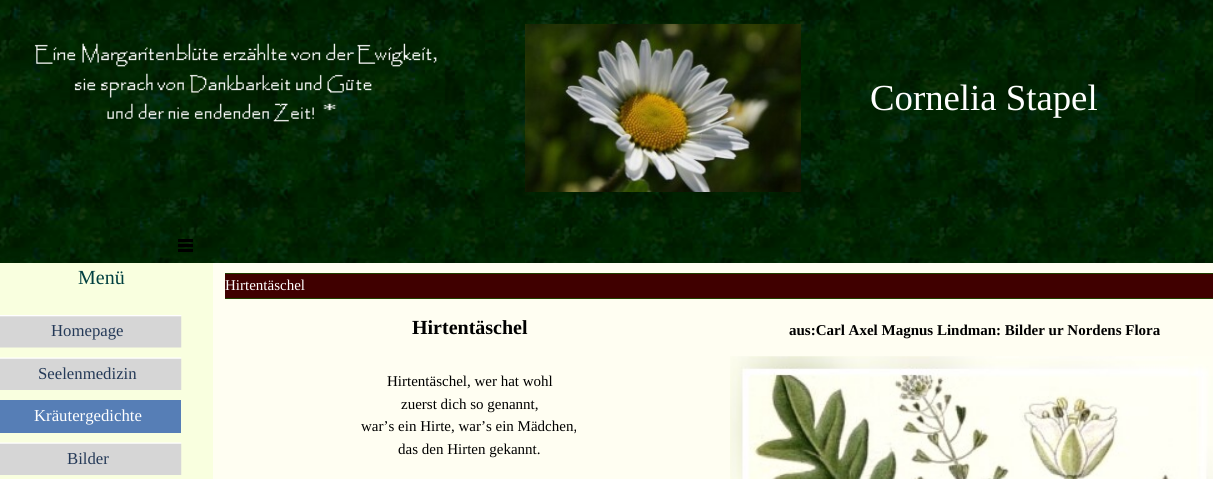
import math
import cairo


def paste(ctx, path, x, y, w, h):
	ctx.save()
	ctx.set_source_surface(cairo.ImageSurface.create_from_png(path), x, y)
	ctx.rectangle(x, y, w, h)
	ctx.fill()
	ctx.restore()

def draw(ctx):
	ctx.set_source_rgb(1, 1, 1)
	ctx.paint()
	paste(ctx, 'media/1.png', 0, 0, 1213, 263)
	paste(ctx, 'media/2.png', 34, 43, 403, 24)
	paste(ctx, 'media/3.png', 525, 23, 276, 169)
	paste(ctx, 'media/4.png', 74, 73, 298, 25)
	ctx.select_font_face('Liberation Serif')
	ctx.set_font_size(36.75)
	ctx.set_source_rgb(1, 1, 1)
	ctx.move_to(870, 110)
	ctx.show_text('Cornelia Stapel')
	paste(ctx, 'media/5.png', 107, 103, 207, 19)
	paste(ctx, 'media/6.png', 323, 103, 14, 8)
	ctx.set_source_rgb(0.973, 1, 0.875)
	ctx.rectangle(0, 263, 213, 216)
	ctx.fill()
	ctx.set_source_rgb(0, 0, 0)
	ctx.rectangle(178, 239, 15, 3)
	ctx.rectangle(178, 244, 15, 3)
	ctx.rectangle(178, 249, 15, 3)
	ctx.fill()
	ctx.set_font_size(20)
	ctx.set_source_rgb(0, 0.251, 0.251)
	ctx.move_to(78, 284)
	ctx.show_text('Menü')
	paste(ctx, 'media/7.png', 0, 315, 182, 33)
	ctx.set_font_size(16.75)
	ctx.set_source_rgb(0.145, 0.227, 0.345)
	ctx.move_to(51, 336)
	ctx.show_text('Homepage')
	paste(ctx, 'media/8.png', 0, 357, 182, 33)
	ctx.move_to(38, 379)
	ctx.show_text('Seelenmedizin')
	ctx.set_source_rgb(0.337, 0.494, 0.714)
	ctx.rectangle(0, 400, 181, 33)
	ctx.fill()
	ctx.set_source_rgb(1, 1, 1)
	ctx.move_to(34, 421)
	ctx.show_text('Kräutergedichte')
	paste(ctx, 'media/8.png', 0, 442, 182, 33)
	ctx.set_source_rgb(0.145, 0.227, 0.345)
	ctx.move_to(67, 464)
	ctx.show_text('Bilder')
	ctx.set_source_rgb(1, 0.996, 0.949)
	ctx.rectangle(213, 263, 1000, 216)
	ctx.fill()
	ctx.set_source_rgb(0.251, 0, 0)
	ctx.rectangle(225, 274, 988, 24)
	ctx.fill()
	ctx.set_source_rgb(0.125, 0.251, 0)
	ctx.rectangle(225, 273, 988, 1)
	ctx.rectangle(225, 298, 988, 1)
	ctx.fill()
	ctx.set_font_size(15)
	ctx.set_source_rgb(1, 1, 1)
	ctx.move_to(225, 290)
	ctx.show_text('Hirtentäschel')
	ctx.select_font_face('Liberation Serif', cairo.FONT_SLANT_NORMAL, cairo.FONT_WEIGHT_BOLD)
	ctx.set_font_size(20)
	ctx.set_source_rgb(0, 0, 0)
	ctx.move_to(412, 334)
	ctx.show_text('Hirtentäschel')
	ctx.select_font_face('Liberation Serif')
	ctx.set_font_size(15)
	for x, y, s in [
		(387, 386, 'Hirtentäschel, wer hat wohl'),
		(401, 409, 'zuerst dich so genannt,'),
		(361, 431, 'war’s ein Hirte, war’s ein Mädchen,'),
		(398, 454, 'das den Hirten gekannt.'),
	]:
		ctx.move_to(x, y)
		ctx.show_text(s)
	ctx.select_font_face('Liberation Serif', cairo.FONT_SLANT_NORMAL, cairo.FONT_WEIGHT_BOLD)
	ctx.move_to(789, 335)
	ctx.show_text('aus:Carl Axel Magnus Lindman: Bilder ur Nordens Flora')
	paste(ctx, 'media/9.png', 730, 356, 483, 123)


surface = cairo.ImageSurface(cairo.FORMAT_RGB24, 1213, 479)
ctx = cairo.Context(surface)
options = cairo.FontOptions()
options.set_hint_metrics(cairo.HINT_METRICS_OFF)
options.set_hint_style(cairo.HINT_STYLE_NONE)
ctx.set_font_options(options)
ctx.set_miter_limit(4)
draw(ctx)
surface.write_to_png('image.png')
